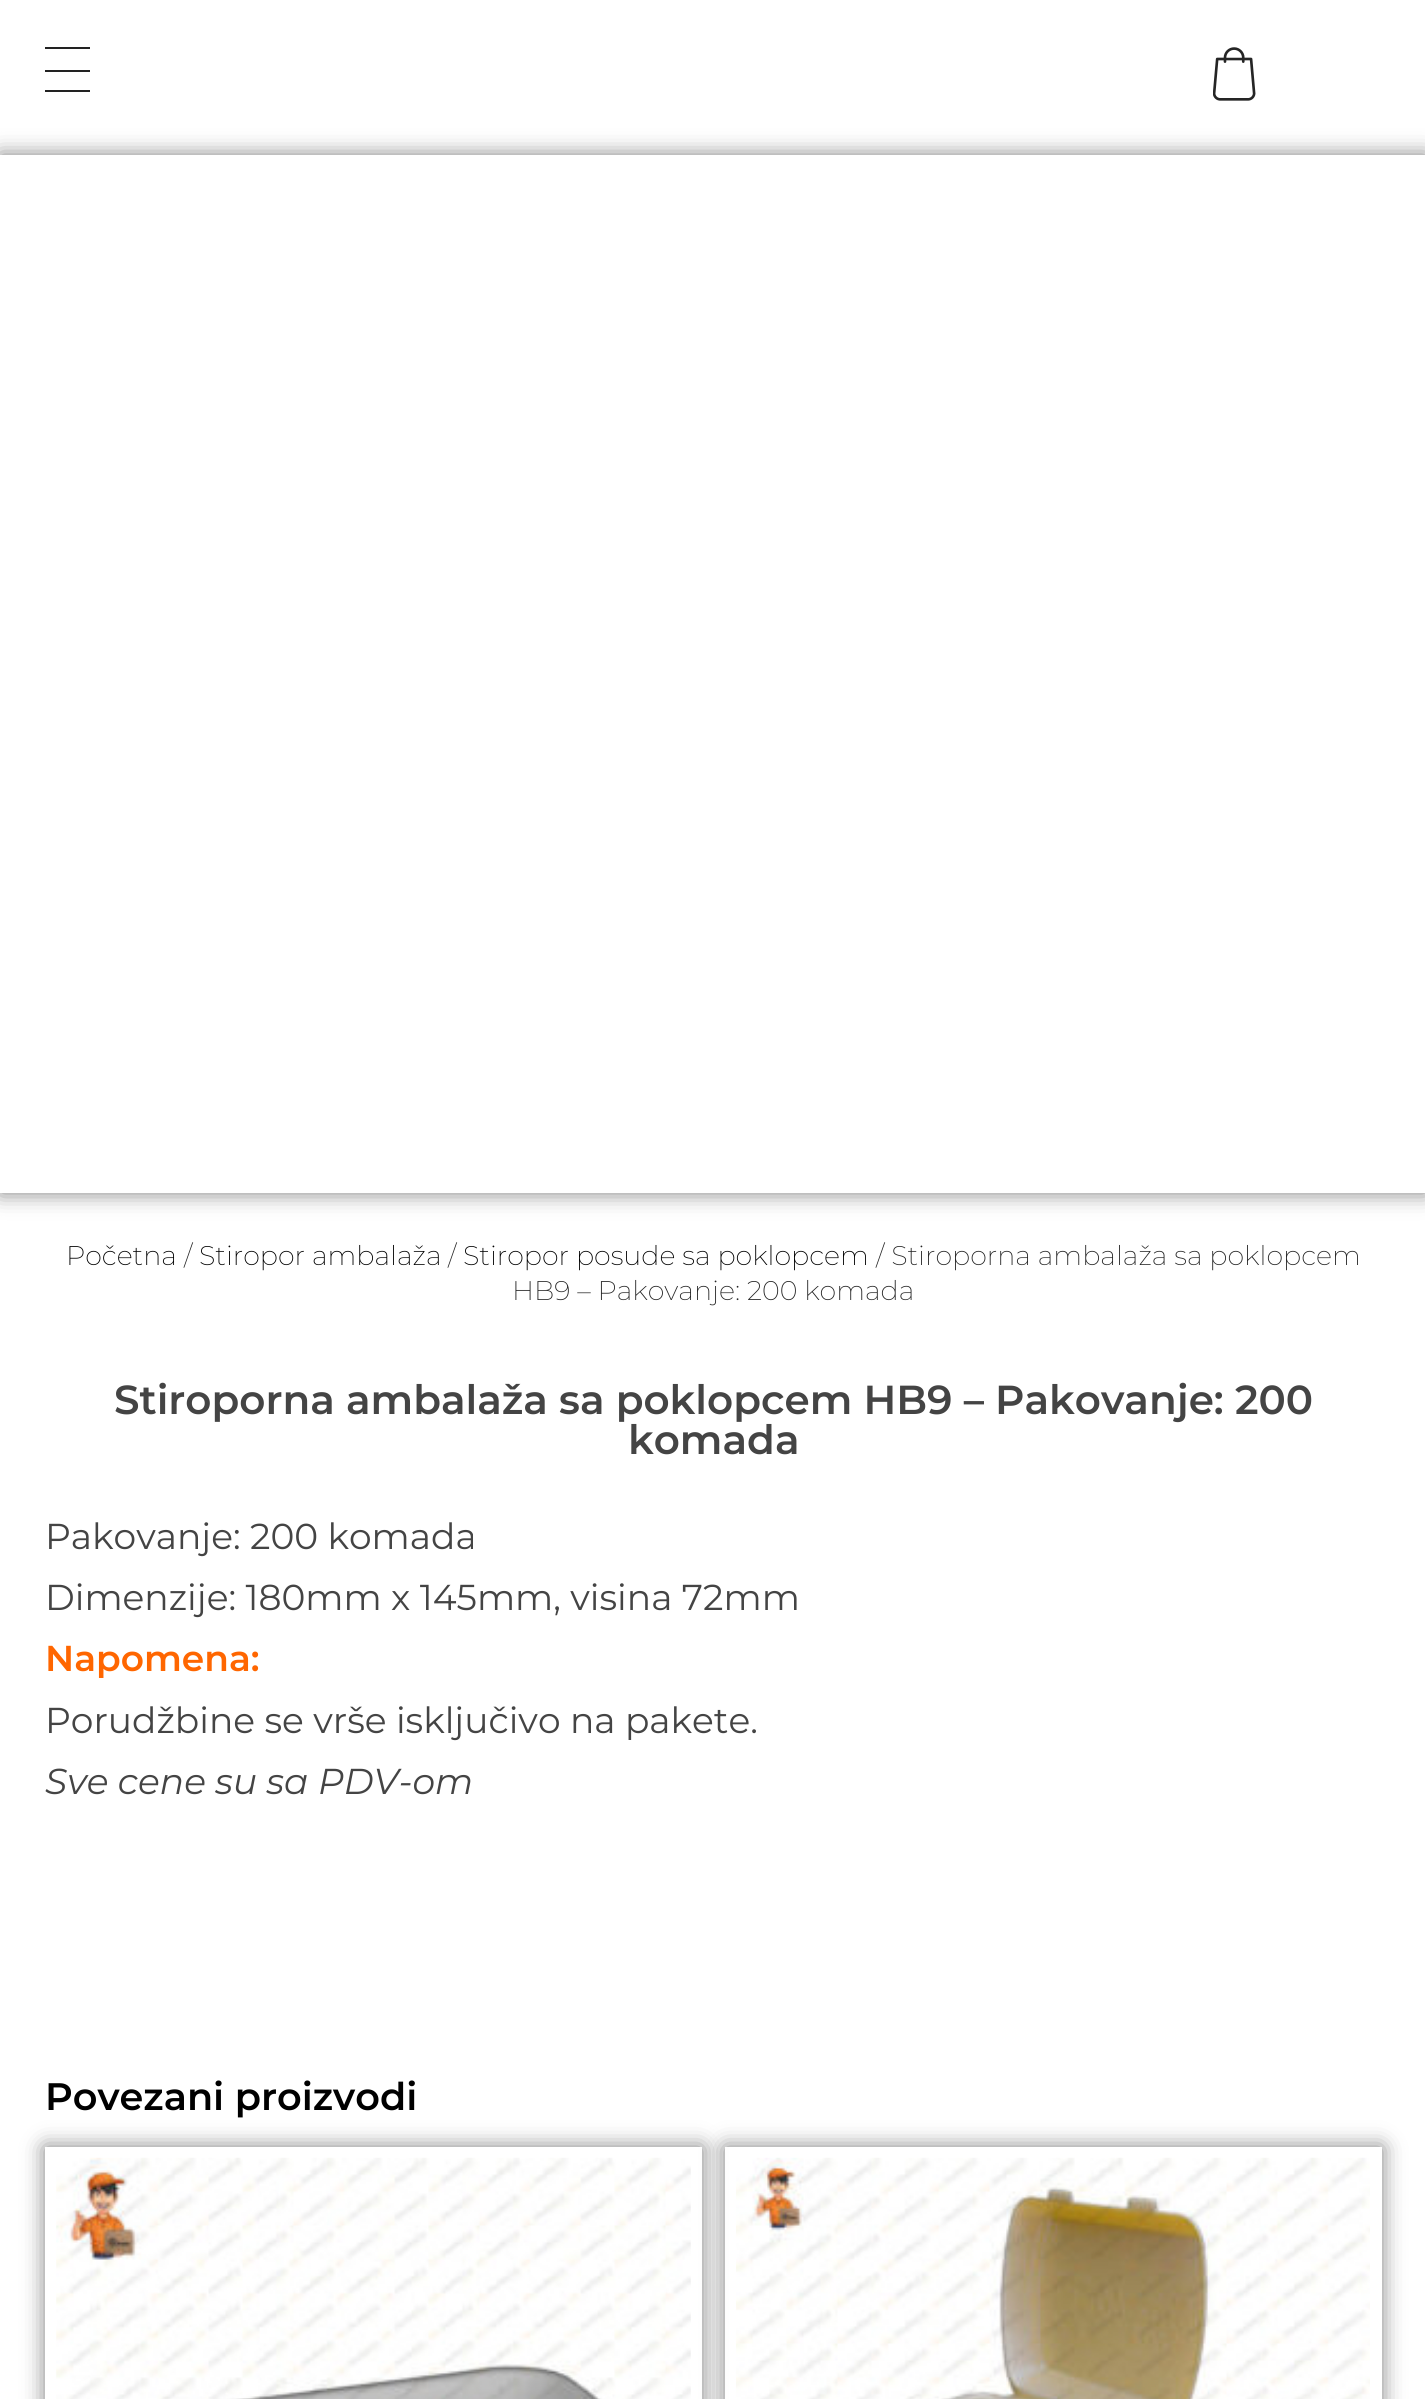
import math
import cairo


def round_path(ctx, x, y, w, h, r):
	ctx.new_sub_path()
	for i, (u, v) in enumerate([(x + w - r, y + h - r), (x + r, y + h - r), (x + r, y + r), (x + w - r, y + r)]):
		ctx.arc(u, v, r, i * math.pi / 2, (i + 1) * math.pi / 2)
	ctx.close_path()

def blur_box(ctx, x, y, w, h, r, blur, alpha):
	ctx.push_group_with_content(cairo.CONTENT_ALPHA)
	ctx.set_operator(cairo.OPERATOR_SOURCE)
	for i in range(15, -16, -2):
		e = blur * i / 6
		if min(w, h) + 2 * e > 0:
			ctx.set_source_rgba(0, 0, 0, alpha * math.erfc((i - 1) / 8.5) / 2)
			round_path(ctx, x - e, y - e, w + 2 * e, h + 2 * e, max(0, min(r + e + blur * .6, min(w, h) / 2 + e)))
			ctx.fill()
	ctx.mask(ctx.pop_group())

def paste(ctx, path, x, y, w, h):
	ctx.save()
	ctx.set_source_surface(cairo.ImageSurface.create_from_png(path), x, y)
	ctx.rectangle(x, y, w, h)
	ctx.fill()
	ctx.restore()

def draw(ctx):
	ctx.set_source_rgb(1, 1, 1)
	ctx.paint()
	ctx.set_source_rgb(0.133, 0.133, 0.133)
	ctx.rectangle(45, 47, 45, 2)
	ctx.rectangle(45, 70, 45, 2)
	ctx.rectangle(45, 90, 45, 2)
	ctx.fill()
	paste(ctx, 'media/1.png', 1213, 47, 43, 54)
	ctx.save()
	ctx.set_fill_rule(cairo.FILL_RULE_EVEN_ODD)
	ctx.new_path()
	ctx.move_to(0, 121)
	ctx.line_to(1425, 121)
	ctx.line_to(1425, 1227)
	ctx.line_to(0, 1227)
	ctx.close_path()
	ctx.move_to(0, 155)
	ctx.line_to(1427, 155)
	ctx.line_to(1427, 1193)
	ctx.line_to(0, 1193)
	ctx.close_path()
	ctx.clip()
	ctx.set_source_rgb(0, 0, 0)
	blur_box(ctx, 0, 155, 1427, 1038, 0, 11, 0.5)
	ctx.restore()
	ctx.select_font_face('Montserrat ExtraLight')
	ctx.set_font_size(27)
	ctx.set_source_rgb(0, 0, 0)
	ctx.move_to(66, 1265)
	ctx.show_text('Početna')
	ctx.set_source_rgb(0.145, 0.145, 0.145)
	ctx.move_to(184, 1265)
	ctx.show_text('/')
	ctx.set_source_rgb(0, 0, 0)
	ctx.move_to(199, 1265)
	ctx.show_text('Stiropor ambalaža')
	ctx.set_source_rgb(0.145, 0.145, 0.145)
	ctx.move_to(448, 1265)
	ctx.show_text('/')
	ctx.set_source_rgb(0, 0, 0)
	ctx.move_to(463, 1265)
	ctx.show_text('Stiropor posude sa poklopcem')
	ctx.set_source_rgb(0.145, 0.145, 0.145)
	ctx.move_to(876, 1265)
	ctx.show_text('/ Stiroporna ambalaža sa poklopcem')
	ctx.move_to(512, 1300)
	ctx.show_text('HB9 – Pakovanje: 200 komada')
	ctx.select_font_face('Montserrat SemiBold')
	ctx.set_font_size(40.5)
	ctx.set_source_rgb(0.267, 0.267, 0.267)
	ctx.move_to(114, 1414)
	ctx.show_text('Stiroporna ambalaža sa poklopcem HB9 – Pakovanje: 200')
	ctx.move_to(628, 1454)
	ctx.show_text('komada')
	ctx.select_font_face('Montserrat')
	ctx.set_font_size(36)
	ctx.move_to(45, 1549)
	ctx.show_text('Pakovanje: 200 komada')
	ctx.move_to(45, 1610)
	ctx.show_text('Dimenzije: 180mm x 145mm, visina 72mm')
	ctx.select_font_face('Montserrat SemiBold')
	ctx.set_source_rgb(1, 0.4, 0)
	ctx.move_to(45, 1671)
	ctx.show_text('Napomena:')
	ctx.select_font_face('Montserrat')
	ctx.set_source_rgb(0.267, 0.267, 0.267)
	ctx.move_to(45, 1733)
	ctx.show_text('Porudžbine se vrše isključivo na pakete.')
	ctx.select_font_face('Montserrat', cairo.FONT_SLANT_ITALIC)
	ctx.move_to(45, 1794)
	ctx.show_text('Sve cene su sa PDV-om')
	ctx.select_font_face('Montserrat SemiBold')
	ctx.set_font_size(38.25)
	ctx.set_source_rgb(0, 0, 0)
	ctx.move_to(45, 2110)
	ctx.show_text('Povezani proizvodi')
	ctx.save()
	ctx.set_fill_rule(cairo.FILL_RULE_EVEN_ODD)
	ctx.new_path()
	ctx.move_to(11, 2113)
	ctx.line_to(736, 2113)
	ctx.line_to(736, 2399)
	ctx.line_to(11, 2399)
	ctx.close_path()
	ctx.move_to(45, 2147)
	ctx.line_to(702, 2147)
	ctx.line_to(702, 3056)
	ctx.line_to(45, 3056)
	ctx.close_path()
	ctx.clip()
	ctx.set_source_rgb(0, 0, 0)
	blur_box(ctx, 45, 2147, 657, 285, 0, 11, 0.5)
	ctx.restore()
	paste(ctx, 'media/2.png', 56, 2157, 635, 242)
	ctx.save()
	ctx.set_fill_rule(cairo.FILL_RULE_EVEN_ODD)
	ctx.new_path()
	ctx.move_to(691, 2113)
	ctx.line_to(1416, 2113)
	ctx.line_to(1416, 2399)
	ctx.line_to(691, 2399)
	ctx.close_path()
	ctx.move_to(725, 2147)
	ctx.line_to(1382, 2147)
	ctx.line_to(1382, 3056)
	ctx.line_to(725, 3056)
	ctx.close_path()
	ctx.clip()
	ctx.set_source_rgb(0, 0, 0)
	blur_box(ctx, 725, 2147, 657, 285, 0, 11, 0.5)
	ctx.restore()
	paste(ctx, 'media/3.png', 736, 2157, 634, 242)


surface = cairo.ImageSurface(cairo.FORMAT_RGB24, 1425, 2399)
ctx = cairo.Context(surface)
options = cairo.FontOptions()
options.set_hint_metrics(cairo.HINT_METRICS_OFF)
options.set_hint_style(cairo.HINT_STYLE_NONE)
ctx.set_font_options(options)
ctx.set_miter_limit(4)
draw(ctx)
surface.write_to_png('image.png')
